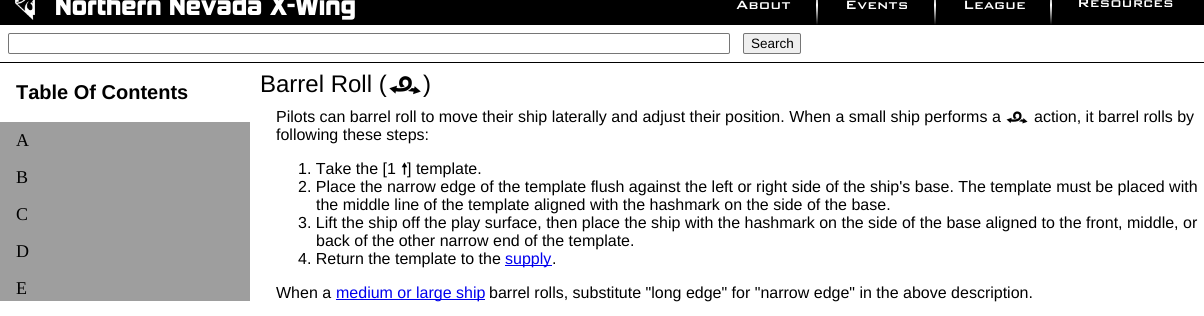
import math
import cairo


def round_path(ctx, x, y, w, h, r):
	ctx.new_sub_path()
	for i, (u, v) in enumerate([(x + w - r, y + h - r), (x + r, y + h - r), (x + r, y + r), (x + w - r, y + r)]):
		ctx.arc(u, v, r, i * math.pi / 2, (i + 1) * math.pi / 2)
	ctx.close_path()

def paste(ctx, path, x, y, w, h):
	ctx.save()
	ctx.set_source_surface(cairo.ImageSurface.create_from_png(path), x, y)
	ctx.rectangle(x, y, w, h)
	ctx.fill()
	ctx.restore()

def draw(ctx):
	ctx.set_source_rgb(1, 1, 1)
	ctx.paint()
	ctx.set_source_rgb(0, 0, 0)
	ctx.rectangle(0, 0, 1204, 25)
	ctx.fill()
	paste(ctx, 'media/1.png', 15, 0, 20, 20)
	ctx.select_font_face('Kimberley')
	ctx.set_font_size(25)
	ctx.set_source_rgb(1, 1, 1)
	ctx.move_to(55, 15)
	ctx.show_text('Northern Nevada X-Wing')
	gradient = cairo.LinearGradient(817, -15, 817, 25)
	gradient.add_color_stop_rgba(0, 0, 0, 0, 1)
	gradient.add_color_stop_rgba(0.5, 1, 1, 1, 1)
	gradient.add_color_stop_rgba(1, 0, 0, 0, 1)
	ctx.set_source(gradient)
	ctx.rectangle(816, 0, 2, 25)
	ctx.fill()
	ctx.select_font_face('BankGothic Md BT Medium')
	ctx.set_font_size(16)
	ctx.set_source_rgb(1, 1, 1)
	ctx.move_to(736, 9)
	ctx.show_text('About')
	gradient = cairo.LinearGradient(935, -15, 935, 25)
	gradient.add_color_stop_rgba(0, 0, 0, 0, 1)
	gradient.add_color_stop_rgba(0.5, 1, 1, 1, 1)
	gradient.add_color_stop_rgba(1, 0, 0, 0, 1)
	ctx.set_source(gradient)
	ctx.rectangle(934, 0, 2, 25)
	ctx.fill()
	ctx.set_source_rgb(1, 1, 1)
	ctx.move_to(845, 9)
	ctx.show_text('Events')
	gradient = cairo.LinearGradient(1051, -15, 1051, 25)
	gradient.add_color_stop_rgba(0, 0, 0, 0, 1)
	gradient.add_color_stop_rgba(0.5, 1, 1, 1, 1)
	gradient.add_color_stop_rgba(1, 0, 0, 0, 1)
	ctx.set_source(gradient)
	ctx.rectangle(1050, 0, 2, 25)
	ctx.fill()
	ctx.set_source_rgb(1, 1, 1)
	ctx.move_to(963, 9)
	ctx.show_text('League')
	ctx.move_to(1077, 7)
	ctx.show_text('Resources')
	ctx.set_source_rgb(0, 0, 0)
	ctx.rectangle(0, 62, 1204, 1)
	ctx.fill()
	round_path(ctx, 8.5, 33.5, 721, 20, 1.5)
	ctx.set_source_rgb(0.463, 0.463, 0.463)
	ctx.set_line_width(1)
	ctx.stroke()
	ctx.set_source_rgb(0.937, 0.937, 0.937)
	round_path(ctx, 743.5, 33.5, 57, 20, 1.5)
	ctx.fill_preserve()
	ctx.set_source_rgb(0.463, 0.463, 0.463)
	ctx.stroke()
	ctx.select_font_face('Liberation Sans')
	ctx.set_font_size(13.5)
	ctx.set_source_rgb(0, 0, 0)
	ctx.move_to(751, 48)
	ctx.show_text('Search')
	ctx.select_font_face('Liberation Sans', cairo.FONT_SLANT_NORMAL, cairo.FONT_WEIGHT_BOLD)
	ctx.set_font_size(20)
	ctx.move_to(16, 99)
	ctx.show_text('Table Of Contents')
	ctx.set_source_rgb(0.62, 0.62, 0.62)
	ctx.rectangle(0, 122, 250, 179)
	ctx.fill()
	ctx.select_font_face('Liberation Serif')
	ctx.set_font_size(18)
	ctx.set_source_rgb(0, 0, 0)
	for x, y, s in [
		(16, 146, 'A'),
		(16, 183, 'B'),
		(16, 220, 'C'),
		(16, 257, 'D'),
		(16, 294, 'E'),
	]:
		ctx.move_to(x, y)
		ctx.show_text(s)
	ctx.select_font_face('Liberation Sans')
	ctx.set_font_size(24)
	ctx.move_to(260, 92)
	ctx.show_text('Barrel Roll (')
	paste(ctx, 'media/2.png', 389, 76, 32, 19)
	ctx.move_to(423, 92)
	ctx.show_text(')')
	ctx.set_font_size(16)
	ctx.move_to(276, 122)
	ctx.show_text('Pilots can barrel roll to move their ship laterally and adjust their position. When a small ship performs a')
	paste(ctx, 'media/3.png', 1006, 111, 22, 13)
	for x, y, s in [
		(1034, 122, 'action, it barrel rolls by'),
		(276, 140, 'following these steps:'),
		(298, 174, '1. Take the [1'),
	]:
		ctx.move_to(x, y)
		ctx.show_text(s)
	paste(ctx, 'media/4.png', 401, 162, 7, 13)
	for x, y, s in [
		(407, 174, '] template.'),
		(298, 192, '2. Place the narrow edge of the template flush against the left or right side of the ship\'s base. The template must be placed with'),
		(316, 210, 'the middle line of the template aligned with the hashmark on the side of the base.'),
		(298, 228, '3. Lift the ship off the play surface, then place the ship with the hashmark on the side of the base aligned to the front, middle, or'),
		(316, 246, 'back of the other narrow end of the template.'),
		(298, 264, '4. Return the template to the'),
	]:
		ctx.move_to(x, y)
		ctx.show_text(s)
	ctx.set_source_rgb(0, 0, 0.933)
	ctx.rectangle(505, 265, 47, 1)
	ctx.fill()
	ctx.move_to(505, 264)
	ctx.show_text('supply')
	ctx.set_source_rgb(0, 0, 0)
	ctx.move_to(552, 264)
	ctx.show_text('.')
	ctx.move_to(276, 298)
	ctx.show_text('When a')
	ctx.set_source_rgb(0, 0, 0.933)
	ctx.rectangle(336, 299, 149, 1)
	ctx.fill()
	ctx.move_to(336, 298)
	ctx.show_text('medium or large ship')
	ctx.set_source_rgb(0, 0, 0)
	ctx.move_to(489, 298)
	ctx.show_text('barrel rolls, substitute "long edge" for "narrow edge" in the above description.')


surface = cairo.ImageSurface(cairo.FORMAT_RGB24, 1204, 316)
ctx = cairo.Context(surface)
options = cairo.FontOptions()
options.set_hint_metrics(cairo.HINT_METRICS_OFF)
options.set_hint_style(cairo.HINT_STYLE_NONE)
ctx.set_font_options(options)
ctx.set_miter_limit(4)
draw(ctx)
surface.write_to_png('image.png')
